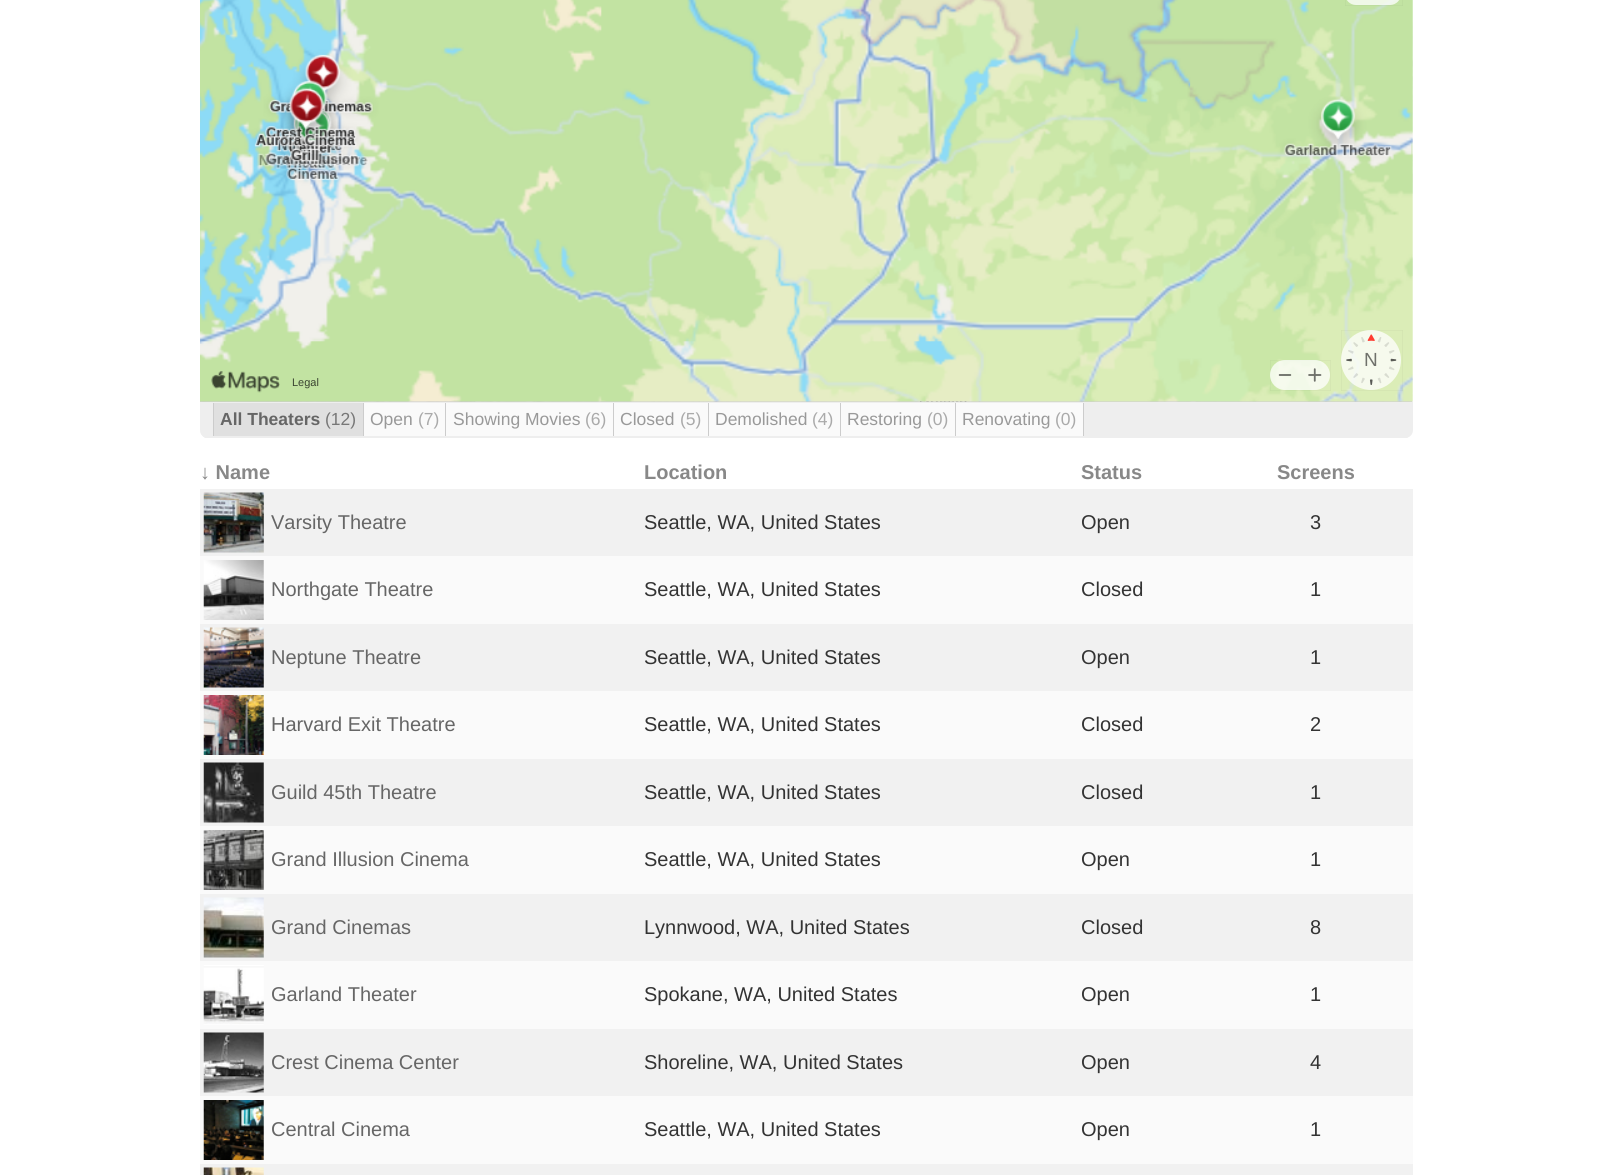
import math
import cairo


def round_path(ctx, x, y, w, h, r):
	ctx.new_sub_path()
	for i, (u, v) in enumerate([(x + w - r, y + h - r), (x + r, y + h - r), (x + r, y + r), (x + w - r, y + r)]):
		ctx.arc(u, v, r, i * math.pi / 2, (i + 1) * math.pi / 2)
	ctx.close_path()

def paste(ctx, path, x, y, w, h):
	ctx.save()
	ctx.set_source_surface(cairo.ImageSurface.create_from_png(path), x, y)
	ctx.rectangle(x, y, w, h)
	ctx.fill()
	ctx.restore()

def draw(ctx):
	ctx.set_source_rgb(1, 1, 1)
	ctx.paint()
	ctx.set_source_rgb(0.933, 0.933, 0.933)
	ctx.new_path()
	ctx.move_to(200, 401)
	ctx.line_to(1413, 401)
	ctx.line_to(1413, 430)
	ctx.curve_to(1413, 434.5, 1409.5, 438, 1405, 438)
	ctx.line_to(208, 438)
	ctx.curve_to(203.5, 438, 200, 434.5, 200, 430)
	ctx.close_path()
	ctx.fill()
	ctx.set_source_rgb(0.8, 0.8, 0.8)
	ctx.rectangle(200, 401, 1212, 1)
	ctx.fill()
	paste(ctx, 'media/1.png', 200, 0, 1213, 402)
	paste(ctx, 'media/2.png', 200, 0, 1213, 402)
	ctx.rectangle(1345.3, -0.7, 57.4, 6.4)
	ctx.set_source_rgba(0, 0, 0, 0.05)
	ctx.set_line_width(0.6)
	ctx.stroke()
	ctx.set_source_rgba(1, 1, 1, 0.75)
	round_path(ctx, 1345, -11, 56, 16, 11)
	ctx.fill()
	ctx.rectangle(1270.3, 360.3, 60.4, 30.4)
	ctx.set_source_rgba(0, 0, 0, 0.05)
	ctx.stroke()
	ctx.set_source_rgba(1, 1, 1, 0.75)
	round_path(ctx, 1270, 360, 60, 30, 15)
	ctx.fill()
	paste(ctx, 'media/3.png', 1278, 374, 14, 2)
	paste(ctx, 'media/4.png', 1308, 368, 14, 14)
	ctx.rectangle(1341.3, 330.3, 61.4, 60.4)
	ctx.set_source_rgba(0, 0, 0, 0.05)
	ctx.stroke()
	ctx.set_source_rgba(1, 1, 1, 0.75)
	ctx.arc(1371, 360, 30, 0, 2 * math.pi)
	ctx.fill()
	paste(ctx, 'media/5.png', 1346, 334, 51, 51)
	ctx.select_font_face('Liberation Sans')
	ctx.set_font_size(19)
	ctx.set_source_rgb(0.435, 0.443, 0.42)
	ctx.move_to(1364, 366)
	ctx.show_text('N')
	paste(ctx, 'media/6.png', 211, 371, 69, 22)
	ctx.set_font_size(11)
	ctx.set_source_rgb(0.227, 0.267, 0.192)
	ctx.move_to(292, 386)
	ctx.show_text('Legal')
	ctx.set_source_rgb(0.933, 0.933, 0.933)
	ctx.new_path()
	ctx.move_to(1407, 438)
	ctx.curve_to(1410, 436, 1412, 433, 1412, 430)
	ctx.curve_to(1412, 433, 1409, 436, 1405, 436)
	ctx.line_to(208, 436)
	ctx.curve_to(203, 436, 200, 433, 200, 430)
	ctx.curve_to(200, 433, 202, 436, 205, 438)
	ctx.close_path()
	ctx.fill()
	ctx.set_source_rgb(0.878, 0.878, 0.878)
	ctx.rectangle(214, 403, 149, 33)
	ctx.fill()
	ctx.set_source_rgb(0.8, 0.8, 0.8)
	ctx.rectangle(363, 403, 1, 33)
	ctx.rectangle(213, 403, 1, 33)
	ctx.fill()
	ctx.select_font_face('Liberation Sans', cairo.FONT_SLANT_NORMAL, cairo.FONT_WEIGHT_BOLD)
	ctx.set_font_size(17.5)
	ctx.set_source_rgb(0.4, 0.4, 0.4)
	ctx.move_to(220, 425)
	ctx.show_text('All Theaters')
	ctx.select_font_face('Liberation Sans')
	ctx.set_source_rgb(0.467, 0.467, 0.467)
	ctx.move_to(325, 425)
	ctx.show_text('(12)')
	ctx.set_source_rgb(0.98, 0.98, 0.98)
	ctx.rectangle(364, 403, 81, 33)
	ctx.fill()
	ctx.set_source_rgb(0.8, 0.8, 0.8)
	ctx.rectangle(445, 403, 1, 33)
	ctx.fill()
	ctx.set_source_rgb(0.6, 0.6, 0.6)
	ctx.move_to(370, 425)
	ctx.show_text('Open')
	ctx.set_source_rgb(0.667, 0.667, 0.667)
	ctx.move_to(418, 425)
	ctx.show_text('(7)')
	ctx.set_source_rgb(0.98, 0.98, 0.98)
	ctx.rectangle(446, 403, 167, 33)
	ctx.fill()
	ctx.set_source_rgb(0.8, 0.8, 0.8)
	ctx.rectangle(613, 403, 1, 33)
	ctx.fill()
	ctx.set_source_rgb(0.6, 0.6, 0.6)
	ctx.move_to(453, 425)
	ctx.show_text('Showing Movies')
	ctx.set_source_rgb(0.667, 0.667, 0.667)
	ctx.move_to(585, 425)
	ctx.show_text('(6)')
	ctx.set_source_rgb(0.98, 0.98, 0.98)
	ctx.rectangle(614, 403, 94, 33)
	ctx.fill()
	ctx.set_source_rgb(0.8, 0.8, 0.8)
	ctx.rectangle(708, 403, 1, 33)
	ctx.fill()
	ctx.set_source_rgb(0.6, 0.6, 0.6)
	ctx.move_to(620, 425)
	ctx.show_text('Closed')
	ctx.set_source_rgb(0.667, 0.667, 0.667)
	ctx.move_to(680, 425)
	ctx.show_text('(5)')
	ctx.set_source_rgb(0.98, 0.98, 0.98)
	ctx.rectangle(709, 403, 131, 33)
	ctx.fill()
	ctx.set_source_rgb(0.8, 0.8, 0.8)
	ctx.rectangle(840, 403, 1, 33)
	ctx.fill()
	ctx.set_source_rgb(0.6, 0.6, 0.6)
	ctx.move_to(715, 425)
	ctx.show_text('Demolished')
	ctx.set_source_rgb(0.667, 0.667, 0.667)
	ctx.move_to(812, 425)
	ctx.show_text('(4)')
	ctx.set_source_rgb(0.98, 0.98, 0.98)
	ctx.rectangle(841, 403, 114, 33)
	ctx.fill()
	ctx.set_source_rgb(0.8, 0.8, 0.8)
	ctx.rectangle(955, 403, 1, 33)
	ctx.fill()
	ctx.set_source_rgb(0.6, 0.6, 0.6)
	ctx.move_to(847, 425)
	ctx.show_text('Restoring')
	ctx.set_source_rgb(0.667, 0.667, 0.667)
	ctx.move_to(927, 425)
	ctx.show_text('(0)')
	ctx.set_source_rgb(0.98, 0.98, 0.98)
	ctx.rectangle(956, 403, 127, 33)
	ctx.fill()
	ctx.set_source_rgb(0.8, 0.8, 0.8)
	ctx.rectangle(1083, 403, 1, 33)
	ctx.fill()
	ctx.set_source_rgb(0.6, 0.6, 0.6)
	ctx.move_to(962, 425)
	ctx.show_text('Renovating')
	ctx.set_source_rgb(0.667, 0.667, 0.667)
	ctx.move_to(1055, 425)
	ctx.show_text('(0)')
	ctx.select_font_face('Liberation Sans', cairo.FONT_SLANT_NORMAL, cairo.FONT_WEIGHT_BOLD)
	ctx.set_font_size(20)
	ctx.set_source_rgb(0.533, 0.533, 0.533)
	for x, y, s in [
		(200, 479, '↓ Name'),
		(644, 479, 'Location'),
		(1081, 479, 'Status'),
		(1277, 479, 'Screens'),
	]:
		ctx.move_to(x, y)
		ctx.show_text(s)
	ctx.set_source_rgb(0.945, 0.945, 0.945)
	ctx.rectangle(200, 489, 1213, 67)
	ctx.fill()
	ctx.set_source_rgb(0.933, 0.933, 0.933)
	ctx.rectangle(204, 493, 60, 60)
	ctx.fill()
	paste(ctx, 'media/7.png', 203, 492, 61, 61)
	ctx.select_font_face('Liberation Sans')
	ctx.set_source_rgb(0.4, 0.4, 0.4)
	ctx.move_to(271, 529)
	ctx.show_text('Varsity Theatre')
	ctx.set_source_rgb(0.2, 0.2, 0.2)
	for x, y, s in [
		(644, 529, 'Seattle, WA, United States'),
		(1081, 529, 'Open'),
		(1310, 529, '3'),
	]:
		ctx.move_to(x, y)
		ctx.show_text(s)
	ctx.set_source_rgb(0.98, 0.98, 0.98)
	ctx.rectangle(200, 556, 1213, 68)
	ctx.fill()
	paste(ctx, 'media/8.png', 203, 560, 61, 60)
	ctx.set_source_rgb(0.4, 0.4, 0.4)
	ctx.move_to(271, 596)
	ctx.show_text('Northgate Theatre')
	ctx.set_source_rgb(0.2, 0.2, 0.2)
	for x, y, s in [
		(644, 596, 'Seattle, WA, United States'),
		(1081, 596, 'Closed'),
		(1310, 596, '1'),
	]:
		ctx.move_to(x, y)
		ctx.show_text(s)
	ctx.set_source_rgb(0.945, 0.945, 0.945)
	ctx.rectangle(200, 624, 1213, 67)
	ctx.fill()
	ctx.set_source_rgb(0.933, 0.933, 0.933)
	ctx.rectangle(204, 628, 60, 60)
	ctx.fill()
	paste(ctx, 'media/9.png', 203, 627, 61, 61)
	ctx.set_source_rgb(0.4, 0.4, 0.4)
	ctx.move_to(271, 664)
	ctx.show_text('Neptune Theatre')
	ctx.set_source_rgb(0.2, 0.2, 0.2)
	for x, y, s in [
		(644, 664, 'Seattle, WA, United States'),
		(1081, 664, 'Open'),
		(1310, 664, '1'),
	]:
		ctx.move_to(x, y)
		ctx.show_text(s)
	ctx.set_source_rgb(0.98, 0.98, 0.98)
	ctx.rectangle(200, 691, 1213, 68)
	ctx.fill()
	paste(ctx, 'media/10.png', 203, 695, 61, 60)
	ctx.set_source_rgb(0.4, 0.4, 0.4)
	ctx.move_to(271, 731)
	ctx.show_text('Harvard Exit Theatre')
	ctx.set_source_rgb(0.2, 0.2, 0.2)
	for x, y, s in [
		(644, 731, 'Seattle, WA, United States'),
		(1081, 731, 'Closed'),
		(1310, 731, '2'),
	]:
		ctx.move_to(x, y)
		ctx.show_text(s)
	ctx.set_source_rgb(0.945, 0.945, 0.945)
	ctx.rectangle(200, 759, 1213, 67)
	ctx.fill()
	ctx.set_source_rgb(0.933, 0.933, 0.933)
	ctx.rectangle(204, 763, 60, 60)
	ctx.fill()
	paste(ctx, 'media/11.png', 203, 762, 61, 61)
	ctx.set_source_rgb(0.4, 0.4, 0.4)
	ctx.move_to(271, 799)
	ctx.show_text('Guild 45th Theatre')
	ctx.set_source_rgb(0.2, 0.2, 0.2)
	for x, y, s in [
		(644, 799, 'Seattle, WA, United States'),
		(1081, 799, 'Closed'),
		(1310, 799, '1'),
	]:
		ctx.move_to(x, y)
		ctx.show_text(s)
	ctx.set_source_rgb(0.98, 0.98, 0.98)
	ctx.rectangle(200, 826, 1213, 68)
	ctx.fill()
	paste(ctx, 'media/12.png', 203, 830, 61, 60)
	ctx.set_source_rgb(0.4, 0.4, 0.4)
	ctx.move_to(271, 866)
	ctx.show_text('Grand Illusion Cinema')
	ctx.set_source_rgb(0.2, 0.2, 0.2)
	for x, y, s in [
		(644, 866, 'Seattle, WA, United States'),
		(1081, 866, 'Open'),
		(1310, 866, '1'),
	]:
		ctx.move_to(x, y)
		ctx.show_text(s)
	ctx.set_source_rgb(0.945, 0.945, 0.945)
	ctx.rectangle(200, 894, 1213, 67)
	ctx.fill()
	ctx.set_source_rgb(0.933, 0.933, 0.933)
	ctx.rectangle(204, 898, 60, 60)
	ctx.fill()
	paste(ctx, 'media/13.png', 203, 897, 61, 61)
	ctx.set_source_rgb(0.4, 0.4, 0.4)
	ctx.move_to(271, 934)
	ctx.show_text('Grand Cinemas')
	ctx.set_source_rgb(0.2, 0.2, 0.2)
	for x, y, s in [
		(644, 934, 'Lynnwood, WA, United States'),
		(1081, 934, 'Closed'),
		(1310, 934, '8'),
	]:
		ctx.move_to(x, y)
		ctx.show_text(s)
	ctx.set_source_rgb(0.98, 0.98, 0.98)
	ctx.rectangle(200, 961, 1213, 68)
	ctx.fill()
	paste(ctx, 'media/14.png', 203, 965, 61, 60)
	ctx.set_source_rgb(0.4, 0.4, 0.4)
	ctx.move_to(271, 1001)
	ctx.show_text('Garland Theater')
	ctx.set_source_rgb(0.2, 0.2, 0.2)
	for x, y, s in [
		(644, 1001, 'Spokane, WA, United States'),
		(1081, 1001, 'Open'),
		(1310, 1001, '1'),
	]:
		ctx.move_to(x, y)
		ctx.show_text(s)
	ctx.set_source_rgb(0.945, 0.945, 0.945)
	ctx.rectangle(200, 1029, 1213, 67)
	ctx.fill()
	ctx.set_source_rgb(0.933, 0.933, 0.933)
	ctx.rectangle(204, 1033, 60, 60)
	ctx.fill()
	paste(ctx, 'media/15.png', 203, 1032, 61, 61)
	ctx.set_source_rgb(0.4, 0.4, 0.4)
	ctx.move_to(271, 1069)
	ctx.show_text('Crest Cinema Center')
	ctx.set_source_rgb(0.2, 0.2, 0.2)
	for x, y, s in [
		(644, 1069, 'Shoreline, WA, United States'),
		(1081, 1069, 'Open'),
		(1310, 1069, '4'),
	]:
		ctx.move_to(x, y)
		ctx.show_text(s)
	ctx.set_source_rgb(0.98, 0.98, 0.98)
	ctx.rectangle(200, 1096, 1213, 68)
	ctx.fill()
	paste(ctx, 'media/16.png', 203, 1100, 61, 60)
	ctx.set_source_rgb(0.4, 0.4, 0.4)
	ctx.move_to(271, 1136)
	ctx.show_text('Central Cinema')
	ctx.set_source_rgb(0.2, 0.2, 0.2)
	for x, y, s in [
		(644, 1136, 'Seattle, WA, United States'),
		(1081, 1136, 'Open'),
		(1310, 1136, '1'),
	]:
		ctx.move_to(x, y)
		ctx.show_text(s)
	ctx.set_source_rgb(0.945, 0.945, 0.945)
	ctx.rectangle(200, 1164, 1213, 11)
	ctx.fill()
	paste(ctx, 'media/17.png', 203, 1167, 61, 8)


surface = cairo.ImageSurface(cairo.FORMAT_RGB24, 1612, 1175)
ctx = cairo.Context(surface)
options = cairo.FontOptions()
options.set_hint_metrics(cairo.HINT_METRICS_OFF)
options.set_hint_style(cairo.HINT_STYLE_NONE)
ctx.set_font_options(options)
ctx.set_miter_limit(4)
draw(ctx)
surface.write_to_png('image.png')
